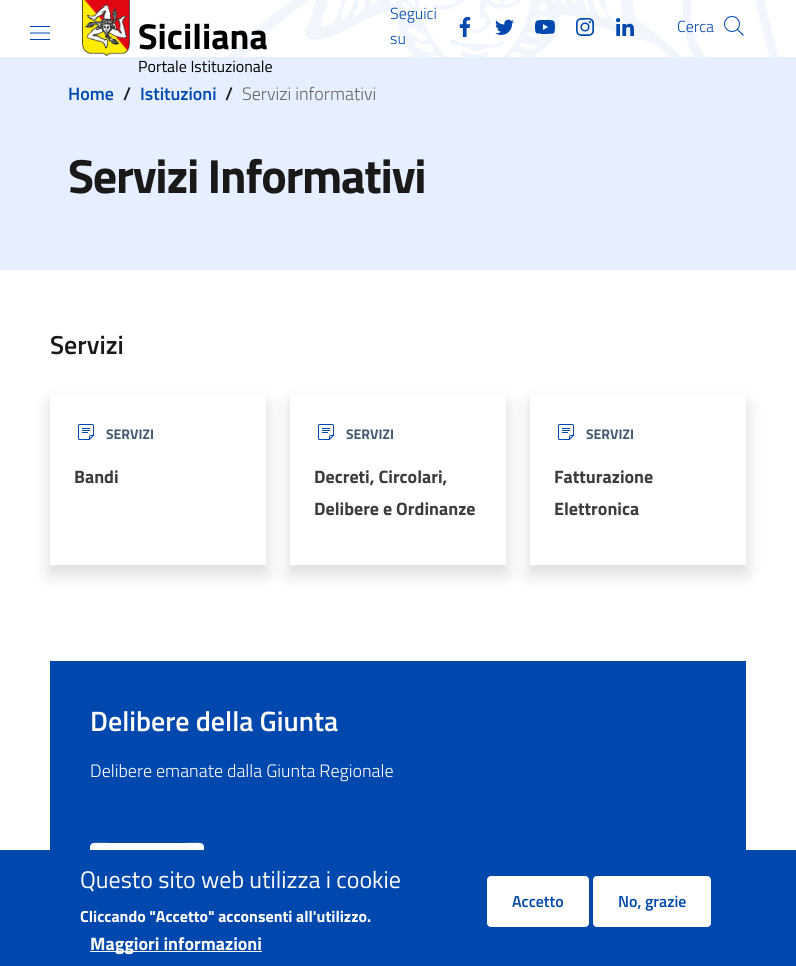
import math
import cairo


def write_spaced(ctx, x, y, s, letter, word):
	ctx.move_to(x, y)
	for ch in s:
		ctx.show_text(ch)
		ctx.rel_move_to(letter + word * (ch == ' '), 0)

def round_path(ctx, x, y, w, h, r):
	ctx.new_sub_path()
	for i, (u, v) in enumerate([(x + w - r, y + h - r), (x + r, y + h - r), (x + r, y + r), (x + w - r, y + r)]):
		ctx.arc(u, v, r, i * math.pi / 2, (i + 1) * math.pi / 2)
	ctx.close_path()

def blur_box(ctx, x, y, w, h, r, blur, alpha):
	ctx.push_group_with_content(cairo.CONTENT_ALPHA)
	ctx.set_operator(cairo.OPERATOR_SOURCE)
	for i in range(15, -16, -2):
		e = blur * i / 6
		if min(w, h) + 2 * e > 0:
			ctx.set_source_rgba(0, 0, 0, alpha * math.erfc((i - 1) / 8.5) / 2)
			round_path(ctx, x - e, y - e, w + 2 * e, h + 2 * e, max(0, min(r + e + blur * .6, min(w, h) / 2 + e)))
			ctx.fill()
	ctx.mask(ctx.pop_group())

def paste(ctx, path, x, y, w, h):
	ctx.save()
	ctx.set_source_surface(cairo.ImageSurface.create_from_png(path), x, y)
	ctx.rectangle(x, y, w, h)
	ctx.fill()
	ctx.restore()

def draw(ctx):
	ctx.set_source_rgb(1, 1, 1)
	ctx.paint()
	paste(ctx, 'media/1.png', 228, 0, 551, 57)
	paste(ctx, 'media/2.png', 30, 26, 20, 14)
	paste(ctx, 'media/3.png', 82, 0, 48, 56)
	ctx.select_font_face('Titillium Web', cairo.FONT_SLANT_NORMAL, cairo.FONT_WEIGHT_BOLD)
	ctx.set_font_size(36)
	ctx.set_source_rgb(0, 0, 0)
	ctx.move_to(138, 49)
	ctx.show_text('Siciliana')
	ctx.set_source_rgb(0.902, 0.937, 1)
	ctx.rectangle(0, 57, 796, 213)
	ctx.fill()
	ctx.select_font_face('Titillium Web')
	ctx.set_font_size(16)
	ctx.set_source_rgb(0, 0, 0)
	ctx.move_to(138, 72)
	ctx.show_text('Portale Istituzionale')
	ctx.select_font_face('Titillium Web Light')
	ctx.set_source_rgb(0, 0.282, 0.678)
	ctx.move_to(390, 19)
	ctx.show_text('Seguici')
	ctx.move_to(390, 44)
	ctx.show_text('su')
	paste(ctx, 'media/4.png', 459, 17, 12, 20)
	paste(ctx, 'media/5.png', 495, 19, 19, 16)
	paste(ctx, 'media/6.png', 535, 20, 20, 14)
	paste(ctx, 'media/7.png', 576, 18, 19, 18)
	paste(ctx, 'media/8.png', 616, 18, 18, 18)
	ctx.move_to(677, 32)
	ctx.show_text('Cerca')
	paste(ctx, 'media/9.png', 724, 16, 20, 20)
	ctx.select_font_face('Titillium Web SemiBold')
	ctx.set_font_size(18)
	ctx.move_to(68, 100)
	ctx.show_text('Home')
	ctx.set_source_rgb(0.098, 0.098, 0.102)
	ctx.move_to(123, 100)
	ctx.show_text('/')
	ctx.set_source_rgb(0, 0.282, 0.678)
	ctx.move_to(140, 100)
	ctx.show_text('Istituzioni')
	ctx.set_source_rgb(0.098, 0.098, 0.102)
	ctx.move_to(225, 100)
	ctx.show_text('/')
	ctx.select_font_face('Titillium Web Light')
	ctx.set_source_rgb(0.396, 0.396, 0.4)
	ctx.move_to(242, 100)
	ctx.show_text('Servizi informativi')
	ctx.select_font_face('Titillium Web', cairo.FONT_SLANT_NORMAL, cairo.FONT_WEIGHT_BOLD)
	ctx.set_font_size(48)
	ctx.set_source_rgb(0.098, 0.098, 0.102)
	write_spaced(ctx, 68, 193, 'Servizi Informativi', -1.25, 0)
	ctx.select_font_face('Titillium Web SemiBold')
	ctx.set_font_size(26)
	ctx.move_to(50, 354)
	ctx.show_text('Servizi')
	ctx.save()
	ctx.set_fill_rule(cairo.FILL_RULE_EVEN_ODD)
	ctx.new_path()
	ctx.move_to(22, 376)
	ctx.line_to(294, 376)
	ctx.line_to(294, 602)
	ctx.line_to(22, 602)
	ctx.close_path()
	ctx.move_to(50, 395)
	ctx.line_to(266, 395)
	ctx.line_to(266, 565)
	ctx.line_to(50, 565)
	ctx.close_path()
	ctx.clip()
	ctx.set_source_rgb(0, 0, 0)
	blur_box(ctx, 50, 404, 216, 170, 0, 9, 0.15)
	ctx.restore()
	paste(ctx, 'media/10.png', 78, 424, 16, 16)
	ctx.select_font_face('Titillium Web', cairo.FONT_SLANT_NORMAL, cairo.FONT_WEIGHT_BOLD)
	ctx.set_font_size(14)
	ctx.set_source_rgb(0.263, 0.353, 0.439)
	ctx.move_to(106, 439)
	ctx.show_text('SERVIZI')
	ctx.set_font_size(18)
	ctx.set_source_rgb(0.239, 0.239, 0.239)
	ctx.move_to(74, 483)
	ctx.show_text('Bandi')
	ctx.save()
	ctx.set_fill_rule(cairo.FILL_RULE_EVEN_ODD)
	ctx.new_path()
	ctx.move_to(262, 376)
	ctx.line_to(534, 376)
	ctx.line_to(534, 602)
	ctx.line_to(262, 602)
	ctx.close_path()
	ctx.move_to(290, 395)
	ctx.line_to(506, 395)
	ctx.line_to(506, 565)
	ctx.line_to(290, 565)
	ctx.close_path()
	ctx.clip()
	ctx.set_source_rgb(0, 0, 0)
	blur_box(ctx, 290, 404, 216, 170, 0, 9, 0.15)
	ctx.restore()
	paste(ctx, 'media/10.png', 318, 424, 16, 16)
	ctx.set_font_size(14)
	ctx.set_source_rgb(0.263, 0.353, 0.439)
	ctx.move_to(346, 439)
	ctx.show_text('SERVIZI')
	ctx.set_font_size(18)
	ctx.set_source_rgb(0.239, 0.239, 0.239)
	ctx.move_to(314, 483)
	ctx.show_text('Decreti, Circolari,')
	ctx.move_to(314, 515)
	ctx.show_text('Delibere e Ordinanze')
	ctx.save()
	ctx.set_fill_rule(cairo.FILL_RULE_EVEN_ODD)
	ctx.new_path()
	ctx.move_to(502, 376)
	ctx.line_to(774, 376)
	ctx.line_to(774, 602)
	ctx.line_to(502, 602)
	ctx.close_path()
	ctx.move_to(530, 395)
	ctx.line_to(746, 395)
	ctx.line_to(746, 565)
	ctx.line_to(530, 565)
	ctx.close_path()
	ctx.clip()
	ctx.set_source_rgb(0, 0, 0)
	blur_box(ctx, 530, 404, 216, 170, 0, 9, 0.15)
	ctx.restore()
	paste(ctx, 'media/10.png', 558, 424, 16, 16)
	ctx.set_font_size(14)
	ctx.set_source_rgb(0.263, 0.353, 0.439)
	ctx.move_to(586, 439)
	ctx.show_text('SERVIZI')
	ctx.set_font_size(18)
	ctx.set_source_rgb(0.239, 0.239, 0.239)
	ctx.move_to(554, 483)
	ctx.show_text('Fatturazione')
	ctx.move_to(554, 515)
	ctx.show_text('Elettronica')
	ctx.set_source_rgb(0, 0.282, 0.678)
	ctx.rectangle(50, 661, 696, 189)
	ctx.fill()
	ctx.select_font_face('Titillium Web SemiBold')
	ctx.set_font_size(28)
	ctx.set_source_rgb(1, 1, 1)
	ctx.move_to(90, 731)
	ctx.show_text('Delibere della Giunta')
	ctx.select_font_face('Titillium Web Light')
	ctx.set_font_size(18)
	ctx.move_to(90, 777)
	ctx.show_text('Delibere emanate dalla Giunta Regionale')
	round_path(ctx, 90, 843, 114, 48, 4)
	ctx.fill()
	ctx.set_source_rgba(1, 1, 1, 0.15)
	ctx.new_path()
	ctx.move_to(94, 844)
	ctx.line_to(200, 844)
	ctx.curve_to(202, 844, 204, 846, 204, 848)
	ctx.curve_to(204, 838, 186, 843, 182, 843)
	ctx.line_to(112, 843)
	ctx.curve_to(108, 843, 90, 838, 90, 848)
	ctx.curve_to(90, 846, 92, 844, 94, 844)
	ctx.close_path()
	ctx.fill()
	ctx.set_source_rgb(0, 0.282, 0.678)
	ctx.rectangle(0, 850, 796, 116)
	ctx.fill()
	ctx.select_font_face('Titillium Web')
	ctx.set_font_size(24)
	ctx.set_source_rgb(1, 1, 1)
	ctx.move_to(80, 888)
	ctx.show_text('Questo sito web utilizza i cookie')
	ctx.select_font_face('Titillium Web', cairo.FONT_SLANT_NORMAL, cairo.FONT_WEIGHT_BOLD)
	ctx.set_font_size(16)
	ctx.move_to(80, 922)
	ctx.show_text('Cliccando "Accetto" acconsenti all\'utilizzo.')
	ctx.rectangle(90, 951, 172, 1)
	ctx.fill()
	ctx.set_font_size(18)
	ctx.move_to(90, 950)
	ctx.show_text('Maggiori informazioni')
	round_path(ctx, 487.5, 876.5, 101, 50, 3.5)
	ctx.fill_preserve()
	ctx.set_line_width(1)
	ctx.stroke()
	ctx.select_font_face('Titillium Web SemiBold')
	ctx.set_font_size(16)
	ctx.set_source_rgb(0, 0.282, 0.678)
	ctx.move_to(512, 907)
	ctx.show_text('Accetto')
	ctx.set_source_rgb(1, 1, 1)
	round_path(ctx, 593.5, 876.5, 117, 50, 3.5)
	ctx.fill_preserve()
	ctx.stroke()
	ctx.set_source_rgb(0, 0.282, 0.678)
	ctx.move_to(618, 907)
	ctx.show_text('No, grazie')


surface = cairo.ImageSurface(cairo.FORMAT_RGB24, 796, 966)
ctx = cairo.Context(surface)
options = cairo.FontOptions()
options.set_hint_metrics(cairo.HINT_METRICS_OFF)
options.set_hint_style(cairo.HINT_STYLE_NONE)
ctx.set_font_options(options)
ctx.set_miter_limit(4)
draw(ctx)
surface.write_to_png('image.png')
